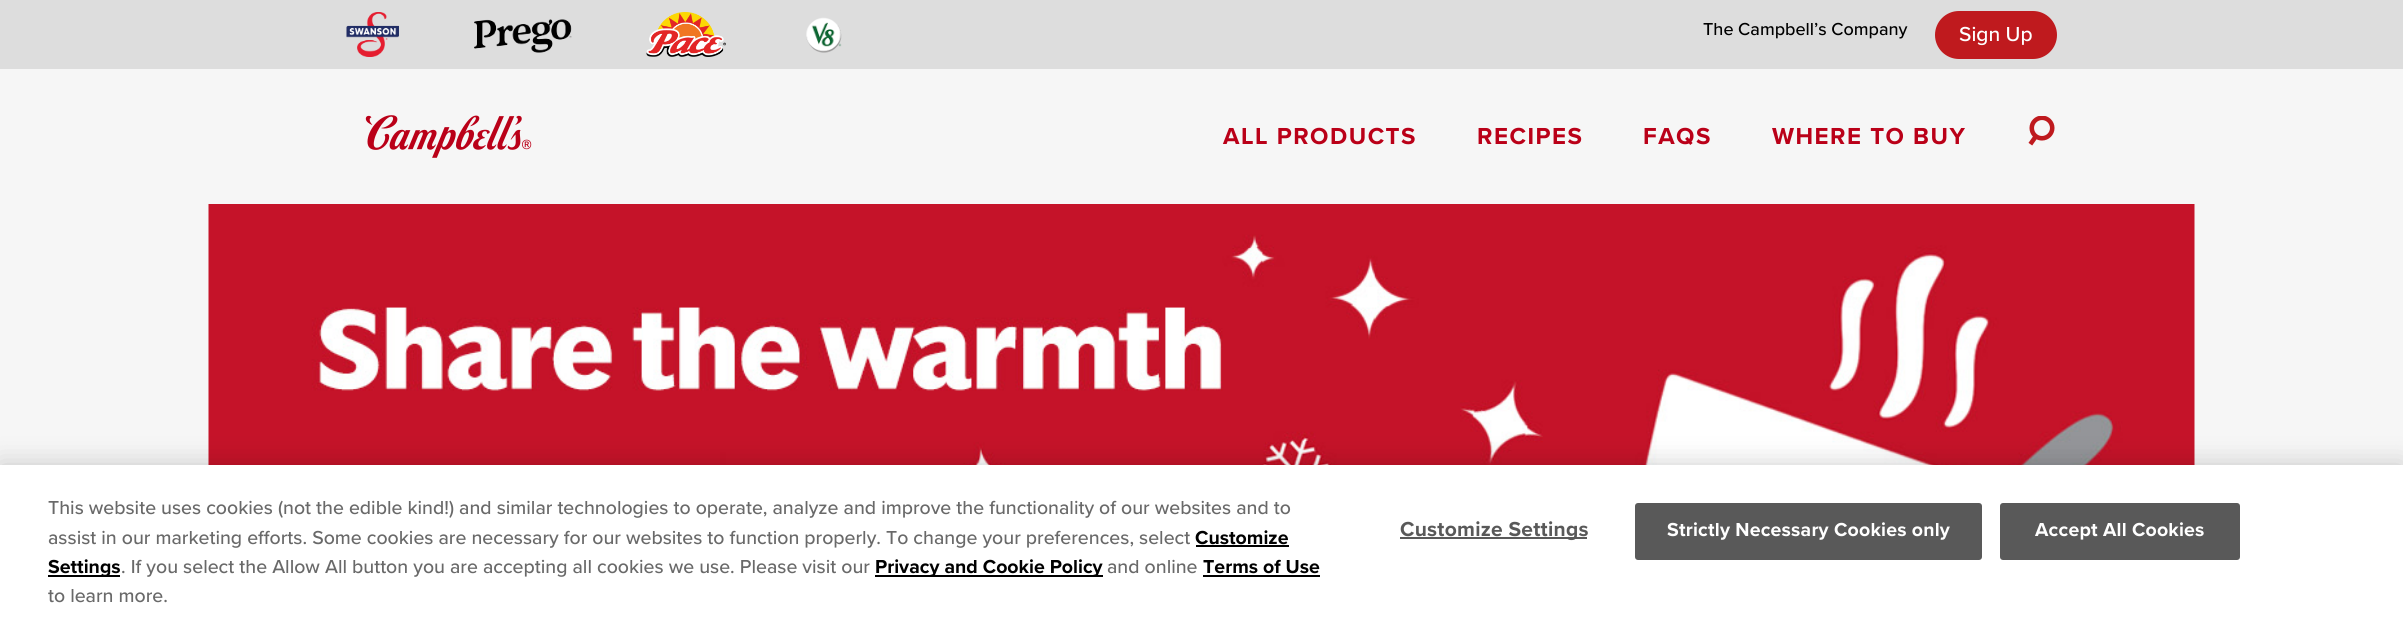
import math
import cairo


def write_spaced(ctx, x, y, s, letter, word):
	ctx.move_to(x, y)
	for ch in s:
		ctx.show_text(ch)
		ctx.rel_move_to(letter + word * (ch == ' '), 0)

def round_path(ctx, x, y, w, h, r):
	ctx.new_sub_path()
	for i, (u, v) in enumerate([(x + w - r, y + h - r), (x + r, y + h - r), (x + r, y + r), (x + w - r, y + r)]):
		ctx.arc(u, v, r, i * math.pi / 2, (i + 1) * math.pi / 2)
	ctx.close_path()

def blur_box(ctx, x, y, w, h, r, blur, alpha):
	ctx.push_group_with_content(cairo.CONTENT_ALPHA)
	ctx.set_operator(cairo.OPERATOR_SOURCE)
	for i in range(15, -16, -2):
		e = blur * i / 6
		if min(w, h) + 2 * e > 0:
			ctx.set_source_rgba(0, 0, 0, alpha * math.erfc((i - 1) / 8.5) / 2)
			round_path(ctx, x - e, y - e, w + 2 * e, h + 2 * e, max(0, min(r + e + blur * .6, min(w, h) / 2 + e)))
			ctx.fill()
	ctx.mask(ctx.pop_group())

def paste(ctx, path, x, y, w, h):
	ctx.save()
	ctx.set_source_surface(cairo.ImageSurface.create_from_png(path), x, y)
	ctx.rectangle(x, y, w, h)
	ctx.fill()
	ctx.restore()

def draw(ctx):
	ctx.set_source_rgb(0.961, 0.961, 0.961)
	ctx.paint()
	ctx.set_source_rgb(0.867, 0.867, 0.867)
	ctx.rectangle(0, 0, 2403, 69)
	ctx.fill()
	paste(ctx, 'media/1.png', 346, 12, 53, 45)
	paste(ctx, 'media/2.png', 474, 19, 98, 34)
	paste(ctx, 'media/3.png', 646, 12, 80, 45)
	paste(ctx, 'media/4.png', 806, 17, 36, 36)
	ctx.select_font_face('Proxima Nova Medium')
	ctx.set_font_size(18)
	ctx.set_source_rgb(0, 0, 0)
	ctx.move_to(1703, 35)
	ctx.show_text('The Campbell’s Company')
	ctx.set_source_rgb(0.749, 0.102, 0.118)
	round_path(ctx, 1936.5, 12.5, 119, 45, 22.5)
	ctx.fill_preserve()
	ctx.set_line_width(3)
	ctx.stroke()
	ctx.set_font_size(21)
	ctx.set_source_rgb(1, 1, 1)
	ctx.move_to(1959, 41)
	ctx.show_text('Sign Up')
	paste(ctx, 'media/5.png', 365, 115, 167, 43)
	ctx.select_font_face('Proxima Nova', cairo.FONT_SLANT_NORMAL, cairo.FONT_WEIGHT_BOLD)
	ctx.set_font_size(24)
	ctx.set_source_rgb(0.729, 0, 0.094)
	for x, y, s in [
		(1223, 144, 'ALL PRODUCTS'),
		(1477, 144, 'RECIPES'),
		(1643, 144, 'FAQS'),
		(1772, 144, 'WHERE TO BUY'),
	]:
		write_spaced(ctx, x, y, s, 1.5, 0)
	paste(ctx, 'media/6.png', 2028, 116, 27, 30)
	paste(ctx, 'media/7.png', 208, 204, 1987, 261)
	ctx.set_source_rgb(0, 0, 0)
	blur_box(ctx, 0, 465, 2403, 162, 0, 13.5, 0.2)
	ctx.set_source_rgb(1, 1, 1)
	ctx.rectangle(0, 465, 2403, 162)
	ctx.fill()
	ctx.select_font_face('Proxima Nova Medium')
	ctx.set_font_size(19.5)
	ctx.set_source_rgb(0.412, 0.412, 0.412)
	for x, y, s in [
		(48, 514, 'This website uses cookies (not the edible kind!) and similar technologies to operate, analyze and improve the functionality of our websites and to'),
		(48, 544, 'assist in our marketing efforts. Some cookies are necessary for our websites to function properly.'),
		(886, 544, 'To change your preferences, select'),
	]:
		ctx.move_to(x, y)
		ctx.show_text(s)
	ctx.select_font_face('Proxima Nova', cairo.FONT_SLANT_NORMAL, cairo.FONT_WEIGHT_BOLD)
	ctx.set_source_rgb(0, 0, 0)
	ctx.move_to(1195, 544)
	ctx.show_text('Customize')
	ctx.rectangle(1196, 545, 93, 2)
	ctx.fill()
	ctx.rectangle(48, 575, 72, 2)
	ctx.fill()
	ctx.move_to(48, 573)
	ctx.show_text('Settings')
	ctx.select_font_face('Proxima Nova Medium')
	ctx.set_source_rgb(0.412, 0.412, 0.412)
	ctx.move_to(121, 573)
	ctx.show_text('. If you select the Allow All button you are accepting all cookies we use. Please visit our')
	ctx.set_source_rgb(0, 0, 0)
	ctx.rectangle(875, 575, 228, 2)
	ctx.fill()
	ctx.select_font_face('Proxima Nova', cairo.FONT_SLANT_NORMAL, cairo.FONT_WEIGHT_BOLD)
	ctx.move_to(875, 573)
	ctx.show_text('Privacy and Cookie Policy')
	ctx.select_font_face('Proxima Nova Medium')
	ctx.set_source_rgb(0.412, 0.412, 0.412)
	ctx.move_to(1107, 573)
	ctx.show_text('and online')
	ctx.select_font_face('Proxima Nova', cairo.FONT_SLANT_NORMAL, cairo.FONT_WEIGHT_BOLD)
	ctx.set_source_rgb(0, 0, 0)
	ctx.move_to(1203, 573)
	ctx.show_text('Terms of Use')
	ctx.rectangle(1203, 575, 117, 2)
	ctx.fill()
	ctx.select_font_face('Proxima Nova Medium')
	ctx.set_source_rgb(0.412, 0.412, 0.412)
	ctx.move_to(48, 602)
	ctx.show_text('to learn more.')
	ctx.set_source_rgb(0.349, 0.349, 0.349)
	ctx.rectangle(1400, 537, 187, 2)
	ctx.fill()
	ctx.select_font_face('Proxima Nova', cairo.FONT_SLANT_NORMAL, cairo.FONT_WEIGHT_BOLD)
	ctx.set_font_size(21)
	write_spaced(ctx, 1400, 536, 'Customize Settings', 0.25, 0)
	round_path(ctx, 1636, 504, 345, 55, 2)
	ctx.fill_preserve()
	ctx.set_line_width(2)
	ctx.stroke()
	ctx.set_font_size(19.5)
	ctx.set_source_rgb(1, 1, 1)
	write_spaced(ctx, 1667, 536, 'Strictly Necessary Cookies only', 0.2, 0)
	ctx.set_source_rgb(0.349, 0.349, 0.349)
	round_path(ctx, 2001, 504, 238, 55, 2)
	ctx.fill_preserve()
	ctx.stroke()
	ctx.set_source_rgb(1, 1, 1)
	write_spaced(ctx, 2035, 536, 'Accept All Cookies', 0.2, 0)


surface = cairo.ImageSurface(cairo.FORMAT_RGB24, 2403, 627)
ctx = cairo.Context(surface)
options = cairo.FontOptions()
options.set_hint_metrics(cairo.HINT_METRICS_OFF)
options.set_hint_style(cairo.HINT_STYLE_NONE)
ctx.set_font_options(options)
ctx.set_miter_limit(4)
draw(ctx)
surface.write_to_png('image.png')
